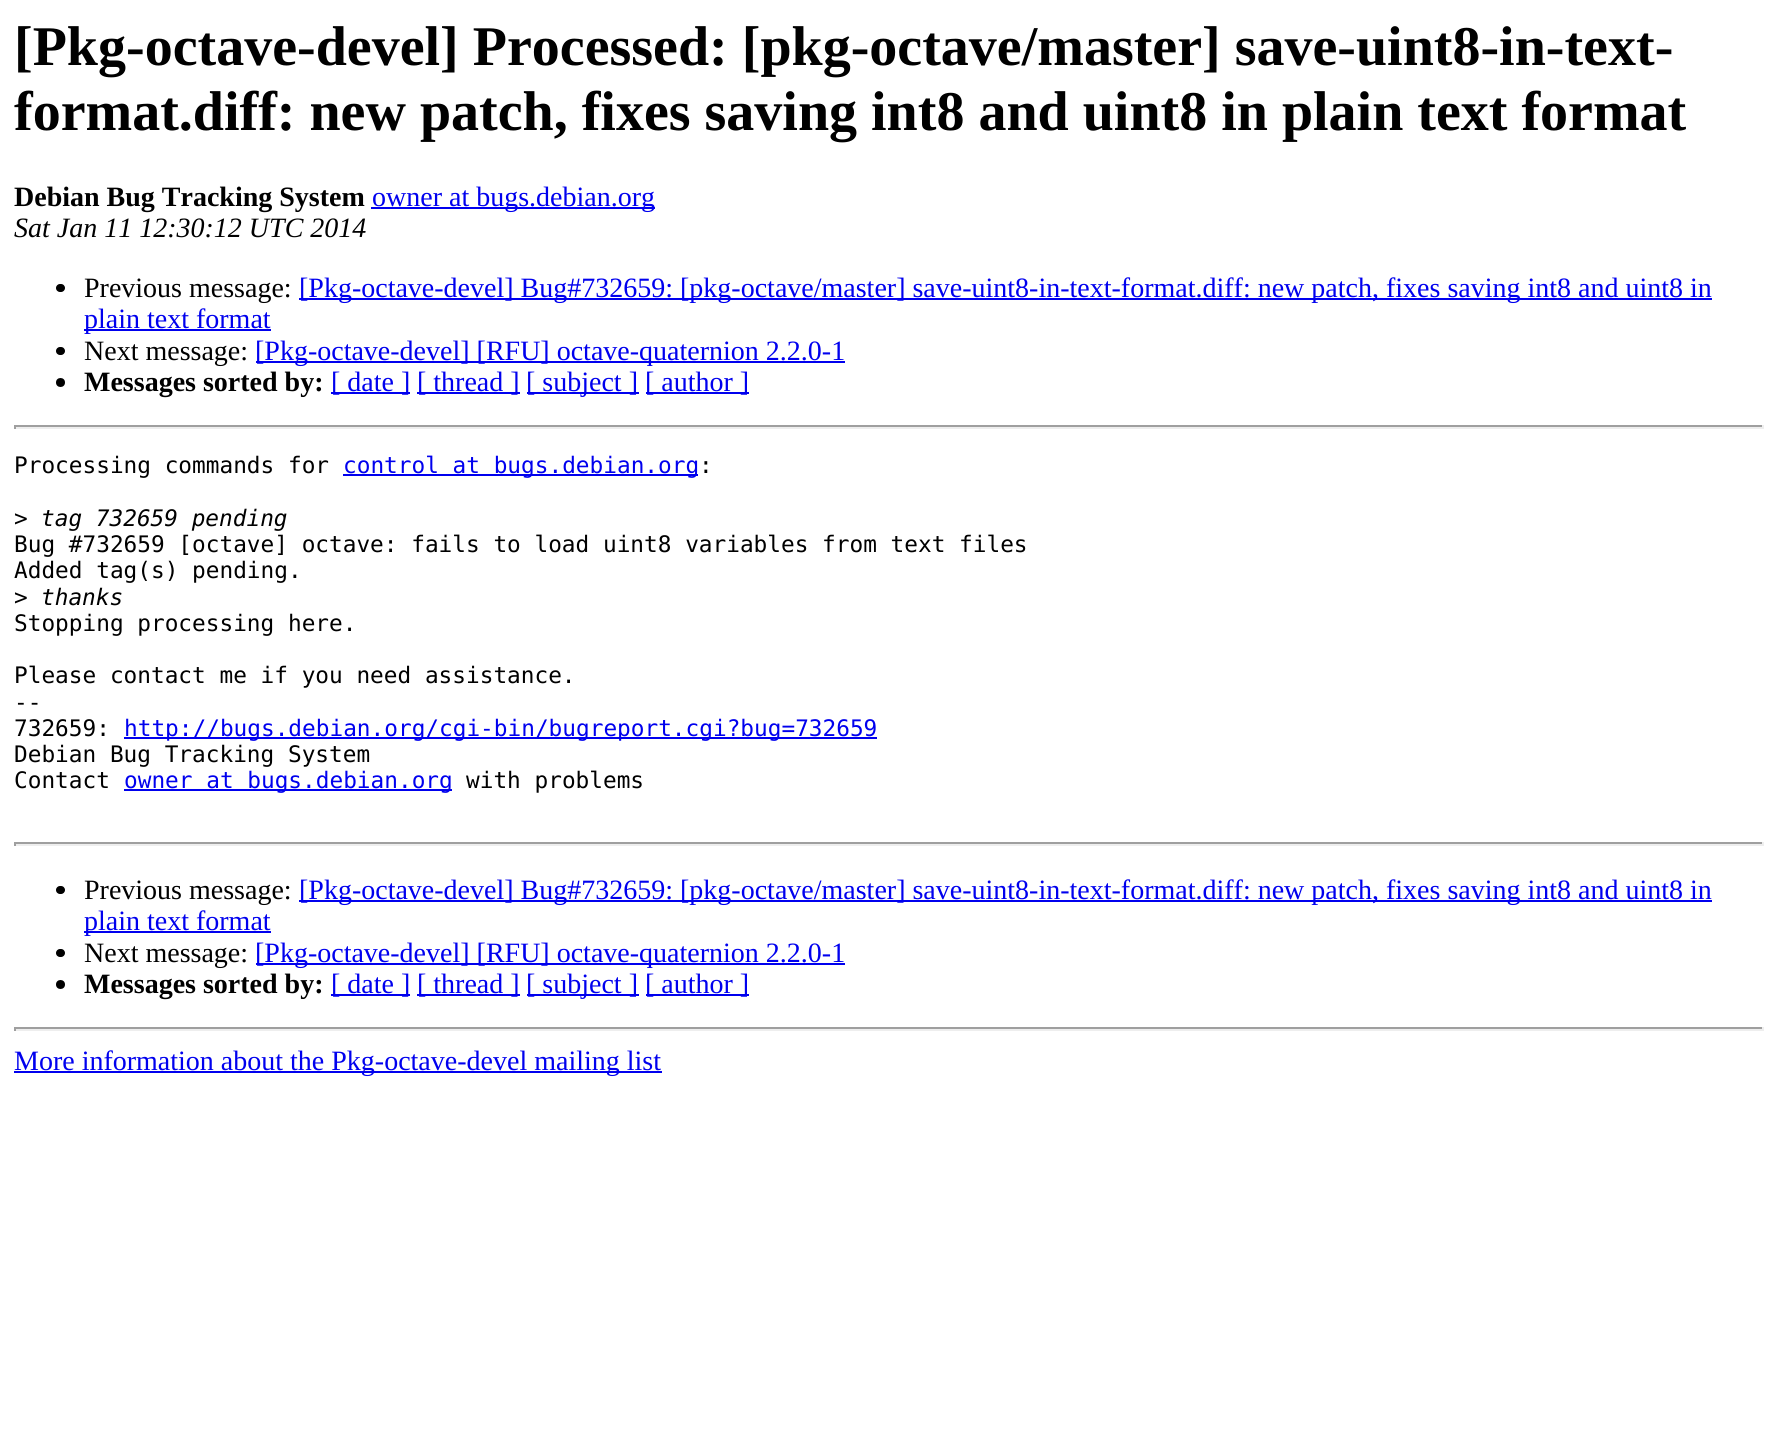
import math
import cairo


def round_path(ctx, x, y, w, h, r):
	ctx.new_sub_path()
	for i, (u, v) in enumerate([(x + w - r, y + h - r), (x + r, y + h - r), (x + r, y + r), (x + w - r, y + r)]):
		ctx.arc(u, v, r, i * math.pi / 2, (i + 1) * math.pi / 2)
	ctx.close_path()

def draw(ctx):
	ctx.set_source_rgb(1, 1, 1)
	ctx.paint()
	ctx.select_font_face('Liberation Serif', cairo.FONT_SLANT_NORMAL, cairo.FONT_WEIGHT_BOLD)
	ctx.set_font_size(56)
	ctx.set_source_rgb(0, 0, 0)
	ctx.move_to(14, 65)
	ctx.show_text('[Pkg-octave-devel] Processed: [pkg-octave/master] save-uint8-in-text-')
	ctx.move_to(14, 130)
	ctx.show_text('format.diff: new patch, fixes saving int8 and uint8 in plain text format')
	ctx.set_font_size(28)
	ctx.move_to(14, 206)
	ctx.show_text('Debian Bug Tracking System')
	ctx.set_source_rgb(0, 0, 0.933)
	ctx.rectangle(371, 207, 284, 2)
	ctx.fill()
	ctx.select_font_face('Liberation Serif')
	ctx.move_to(372, 206)
	ctx.show_text('owner at bugs.debian.org')
	ctx.select_font_face('Liberation Serif', cairo.FONT_SLANT_ITALIC)
	ctx.set_source_rgb(0, 0, 0)
	ctx.move_to(14, 237)
	ctx.show_text('Sat Jan 11 12:30:12 UTC 2014')
	round_path(ctx, 56, 284, 9, 8, 4)
	ctx.fill()
	ctx.select_font_face('Liberation Serif')
	ctx.move_to(84, 297)
	ctx.show_text('Previous message:')
	ctx.set_source_rgb(0, 0, 0.933)
	ctx.rectangle(299, 298, 1413, 2)
	ctx.fill()
	ctx.move_to(299, 297)
	ctx.show_text('[Pkg-octave-devel] Bug#732659: [pkg-octave/master] save-uint8-in-text-format.diff: new patch, fixes saving int8 and uint8 in')
	ctx.rectangle(84, 329, 187, 2)
	ctx.fill()
	ctx.move_to(84, 328)
	ctx.show_text('plain text format')
	ctx.set_source_rgb(0, 0, 0)
	round_path(ctx, 56, 347, 9, 8, 4)
	ctx.fill()
	ctx.move_to(84, 360)
	ctx.show_text('Next message:')
	ctx.set_source_rgb(0, 0, 0.933)
	ctx.rectangle(256, 361, 589, 2)
	ctx.fill()
	ctx.move_to(255, 360)
	ctx.show_text('[Pkg-octave-devel] [RFU] octave-quaternion 2.2.0-1')
	ctx.set_source_rgb(0, 0, 0)
	ctx.new_path()
	ctx.arc(60.5, 382.5, 4.5, 0, 2 * math.pi)
	ctx.fill()
	ctx.select_font_face('Liberation Serif', cairo.FONT_SLANT_NORMAL, cairo.FONT_WEIGHT_BOLD)
	ctx.move_to(84, 391)
	ctx.show_text('Messages sorted by:')
	ctx.set_source_rgb(0, 0, 0.933)
	ctx.rectangle(331, 392, 79, 2)
	ctx.fill()
	ctx.select_font_face('Liberation Serif')
	ctx.move_to(331, 391)
	ctx.show_text('[ date ]')
	ctx.rectangle(417, 392, 103, 2)
	ctx.fill()
	ctx.move_to(417, 391)
	ctx.show_text('[ thread ]')
	ctx.rectangle(527, 392, 112, 2)
	ctx.fill()
	ctx.move_to(526, 391)
	ctx.show_text('[ subject ]')
	ctx.rectangle(646, 392, 103, 2)
	ctx.fill()
	ctx.move_to(645, 391)
	ctx.show_text('[ author ]')
	ctx.set_source_rgb(0.624, 0.624, 0.624)
	ctx.rectangle(14, 425, 1750, 2)
	ctx.fill()
	ctx.set_source_rgb(0.933, 0.933, 0.933)
	ctx.rectangle(1762, 425, 2, 4)
	ctx.rectangle(14, 427, 1750, 2)
	ctx.fill()
	ctx.set_source_rgb(0.624, 0.624, 0.624)
	ctx.rectangle(14, 425, 2, 4)
	ctx.fill()
	ctx.select_font_face('DejaVu Sans Mono')
	ctx.set_font_size(22.75)
	ctx.set_source_rgb(0, 0, 0)
	ctx.move_to(14, 473)
	ctx.show_text('Processing commands for')
	ctx.set_source_rgb(0, 0, 0.933)
	ctx.rectangle(343, 474, 355, 2)
	ctx.fill()
	ctx.move_to(343, 473)
	ctx.show_text('control at bugs.debian.org')
	ctx.set_source_rgb(0, 0, 0)
	ctx.move_to(699, 473)
	ctx.show_text(':')
	ctx.move_to(14, 526)
	ctx.show_text('>')
	ctx.select_font_face('DejaVu Sans Mono', cairo.FONT_SLANT_ITALIC)
	ctx.move_to(41, 526)
	ctx.show_text('tag 732659 pending')
	ctx.select_font_face('DejaVu Sans Mono')
	for x, y, s in [
		(14, 552, 'Bug #732659 [octave] octave: fails to load uint8 variables from text files'),
		(14, 578, 'Added tag(s) pending.'),
		(14, 605, '>'),
	]:
		ctx.move_to(x, y)
		ctx.show_text(s)
	ctx.select_font_face('DejaVu Sans Mono', cairo.FONT_SLANT_ITALIC)
	ctx.move_to(41, 605)
	ctx.show_text('thanks')
	ctx.select_font_face('DejaVu Sans Mono')
	for x, y, s in [
		(14, 631, 'Stopping processing here.'),
		(14, 683, 'Please contact me if you need assistance.'),
		(14, 710, '--'),
		(14, 736, '732659:'),
	]:
		ctx.move_to(x, y)
		ctx.show_text(s)
	ctx.set_source_rgb(0, 0, 0.933)
	ctx.rectangle(124, 737, 753, 2)
	ctx.fill()
	ctx.move_to(124, 736)
	ctx.show_text('http://bugs.debian.org/cgi-bin/bugreport.cgi?bug=732659')
	ctx.set_source_rgb(0, 0, 0)
	ctx.move_to(14, 762)
	ctx.show_text('Debian Bug Tracking System')
	ctx.move_to(14, 788)
	ctx.show_text('Contact')
	ctx.set_source_rgb(0, 0, 0.933)
	ctx.rectangle(124, 789, 328, 2)
	ctx.fill()
	ctx.move_to(124, 788)
	ctx.show_text('owner at bugs.debian.org')
	ctx.set_source_rgb(0, 0, 0)
	ctx.move_to(466, 788)
	ctx.show_text('with problems')
	ctx.set_source_rgb(0.624, 0.624, 0.624)
	ctx.rectangle(14, 842, 1750, 2)
	ctx.fill()
	ctx.set_source_rgb(0.933, 0.933, 0.933)
	ctx.rectangle(1762, 842, 2, 4)
	ctx.rectangle(14, 844, 1750, 2)
	ctx.fill()
	ctx.set_source_rgb(0.624, 0.624, 0.624)
	ctx.rectangle(14, 842, 2, 4)
	ctx.fill()
	ctx.set_source_rgb(0, 0, 0)
	round_path(ctx, 56, 886, 9, 8, 4)
	ctx.fill()
	ctx.select_font_face('Liberation Serif')
	ctx.set_font_size(28)
	ctx.move_to(84, 899)
	ctx.show_text('Previous message:')
	ctx.set_source_rgb(0, 0, 0.933)
	ctx.rectangle(299, 900, 1413, 2)
	ctx.fill()
	ctx.move_to(299, 899)
	ctx.show_text('[Pkg-octave-devel] Bug#732659: [pkg-octave/master] save-uint8-in-text-format.diff: new patch, fixes saving int8 and uint8 in')
	ctx.rectangle(84, 931, 187, 2)
	ctx.fill()
	ctx.move_to(84, 930)
	ctx.show_text('plain text format')
	ctx.set_source_rgb(0, 0, 0)
	round_path(ctx, 56, 949, 9, 8, 4)
	ctx.fill()
	ctx.move_to(84, 962)
	ctx.show_text('Next message:')
	ctx.set_source_rgb(0, 0, 0.933)
	ctx.rectangle(256, 963, 589, 2)
	ctx.fill()
	ctx.move_to(255, 962)
	ctx.show_text('[Pkg-octave-devel] [RFU] octave-quaternion 2.2.0-1')
	ctx.set_source_rgb(0, 0, 0)
	ctx.new_path()
	ctx.arc(60.5, 984.5, 4.5, 0, 2 * math.pi)
	ctx.fill()
	ctx.select_font_face('Liberation Serif', cairo.FONT_SLANT_NORMAL, cairo.FONT_WEIGHT_BOLD)
	ctx.move_to(84, 993)
	ctx.show_text('Messages sorted by:')
	ctx.set_source_rgb(0, 0, 0.933)
	ctx.rectangle(331, 994, 79, 2)
	ctx.fill()
	ctx.select_font_face('Liberation Serif')
	ctx.move_to(331, 993)
	ctx.show_text('[ date ]')
	ctx.rectangle(417, 994, 103, 2)
	ctx.fill()
	ctx.move_to(417, 993)
	ctx.show_text('[ thread ]')
	ctx.rectangle(527, 994, 112, 2)
	ctx.fill()
	ctx.move_to(526, 993)
	ctx.show_text('[ subject ]')
	ctx.rectangle(646, 994, 103, 2)
	ctx.fill()
	ctx.move_to(645, 993)
	ctx.show_text('[ author ]')
	ctx.set_source_rgb(0.624, 0.624, 0.624)
	ctx.rectangle(14, 1027, 1750, 2)
	ctx.fill()
	ctx.set_source_rgb(0.933, 0.933, 0.933)
	ctx.rectangle(1762, 1027, 2, 4)
	ctx.rectangle(14, 1029, 1750, 2)
	ctx.fill()
	ctx.set_source_rgb(0.624, 0.624, 0.624)
	ctx.rectangle(14, 1027, 2, 4)
	ctx.fill()
	ctx.set_source_rgb(0, 0, 0.933)
	ctx.rectangle(14, 1071, 648, 2)
	ctx.fill()
	ctx.move_to(14, 1070)
	ctx.show_text('More information about the Pkg-octave-devel mailing list')


surface = cairo.ImageSurface(cairo.FORMAT_RGB24, 1777, 1439)
ctx = cairo.Context(surface)
options = cairo.FontOptions()
options.set_hint_metrics(cairo.HINT_METRICS_OFF)
options.set_hint_style(cairo.HINT_STYLE_NONE)
ctx.set_font_options(options)
ctx.set_miter_limit(4)
draw(ctx)
surface.write_to_png('image.png')
